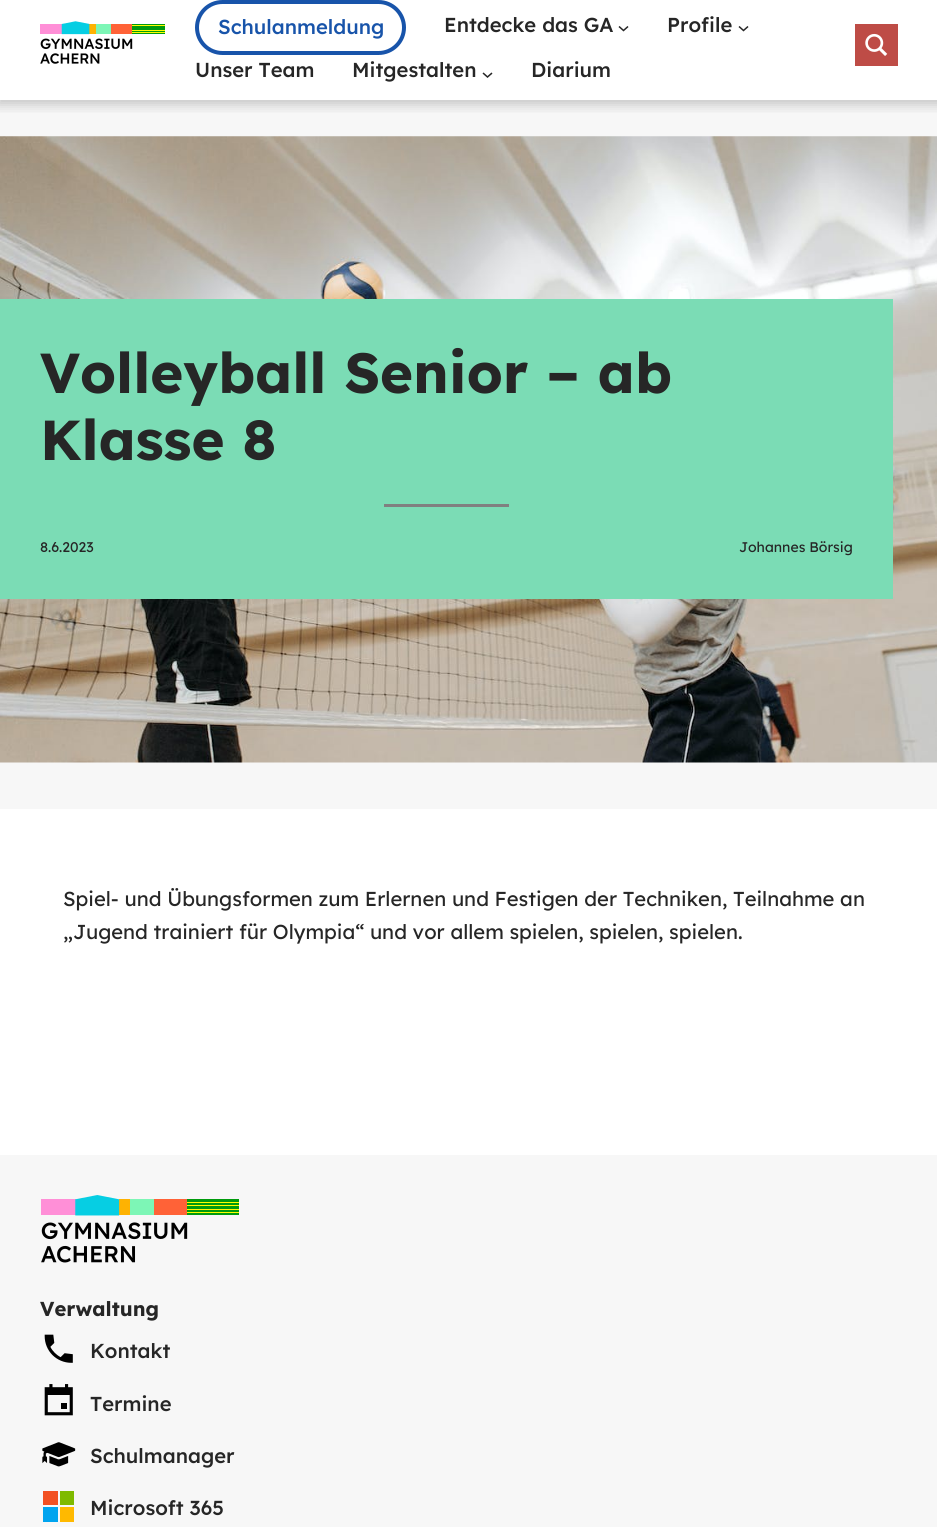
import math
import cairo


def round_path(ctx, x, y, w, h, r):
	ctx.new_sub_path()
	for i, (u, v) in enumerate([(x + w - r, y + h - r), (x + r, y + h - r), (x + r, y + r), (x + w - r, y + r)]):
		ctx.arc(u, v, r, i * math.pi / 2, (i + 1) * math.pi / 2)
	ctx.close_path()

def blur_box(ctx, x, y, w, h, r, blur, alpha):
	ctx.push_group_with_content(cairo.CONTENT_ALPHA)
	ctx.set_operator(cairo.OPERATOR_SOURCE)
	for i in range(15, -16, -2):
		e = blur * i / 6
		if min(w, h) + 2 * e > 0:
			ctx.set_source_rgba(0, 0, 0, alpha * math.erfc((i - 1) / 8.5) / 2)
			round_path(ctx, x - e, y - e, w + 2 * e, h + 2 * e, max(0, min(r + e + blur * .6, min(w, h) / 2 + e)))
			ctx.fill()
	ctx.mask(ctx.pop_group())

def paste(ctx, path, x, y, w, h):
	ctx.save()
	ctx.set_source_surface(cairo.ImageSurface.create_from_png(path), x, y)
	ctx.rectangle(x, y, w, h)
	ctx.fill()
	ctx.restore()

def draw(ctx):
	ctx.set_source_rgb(1, 1, 1)
	ctx.paint()
	ctx.set_source_rgb(0.965, 0.965, 0.965)
	ctx.rectangle(0, 100, 937, 709)
	ctx.fill()
	ctx.save()
	ctx.rectangle(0, 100, 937, 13)
	ctx.clip()
	ctx.set_source_rgb(0, 0, 0)
	blur_box(ctx, -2, 0, 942, 105, 0, 6, 0.2)
	ctx.restore()
	paste(ctx, 'media/1.png', 40, 21, 125, 43)
	round_path(ctx, 197, 2, 207, 51, 25.5)
	ctx.set_source_rgb(0.094, 0.329, 0.667)
	ctx.set_line_width(4)
	ctx.stroke()
	ctx.select_font_face('Lexend Medium')
	ctx.set_font_size(20.2)
	ctx.move_to(218, 34)
	ctx.show_text('Schulanmeldung')
	ctx.set_source_rgb(0.149, 0.149, 0.149)
	ctx.move_to(444, 32)
	ctx.show_text('Entdecke das GA')
	ctx.new_path()
	ctx.move_to(619, 26.5)
	ctx.line_to(623.5, 30.5)
	ctx.line_to(628, 26.5)
	ctx.set_line_width(1.5)
	ctx.stroke()
	ctx.move_to(667, 32)
	ctx.show_text('Profile')
	ctx.new_path()
	ctx.move_to(739, 26.5)
	ctx.line_to(743.5, 30.5)
	ctx.line_to(748, 26.5)
	ctx.stroke()
	ctx.move_to(195, 77)
	ctx.show_text('Unser Team')
	ctx.move_to(352, 77)
	ctx.show_text('Mitgestalten')
	ctx.new_path()
	ctx.move_to(483, 73)
	ctx.line_to(487.5, 77)
	ctx.line_to(492, 73)
	ctx.stroke()
	ctx.move_to(531, 77)
	ctx.show_text('Diarium')
	ctx.set_source_rgb(0.745, 0.298, 0.275)
	ctx.rectangle(855, 24, 43, 42)
	ctx.fill()
	paste(ctx, 'media/2.png', 865, 33, 23, 23)
	paste(ctx, 'media/3.png', 0, 136, 937, 627)
	ctx.set_source_rgb(0.482, 0.863, 0.71)
	ctx.rectangle(0, 299, 893, 300)
	ctx.fill()
	ctx.select_font_face('Lexend', cairo.FONT_SLANT_NORMAL, cairo.FONT_WEIGHT_BOLD)
	ctx.set_font_size(56.25)
	ctx.set_source_rgb(0.149, 0.149, 0.149)
	ctx.move_to(40, 393)
	ctx.show_text('Volleyball Senior – ab')
	ctx.move_to(40, 460)
	ctx.show_text('Klasse 8')
	ctx.set_source_rgb(0.502, 0.502, 0.502)
	ctx.rectangle(384, 504, 125, 3)
	ctx.fill()
	ctx.select_font_face('Lexend')
	ctx.set_font_size(14)
	ctx.set_source_rgb(0.149, 0.149, 0.149)
	ctx.move_to(40, 552)
	ctx.show_text('8.6.2023')
	ctx.move_to(739, 552)
	ctx.show_text('Johannes Börsig')
	ctx.set_font_size(20.2)
	ctx.move_to(63, 906)
	ctx.show_text('Spiel- und Übungsformen zum Erlernen und Festigen der Techniken, Teilnahme an')
	ctx.move_to(63, 939)
	ctx.show_text('„Jugend trainiert für Olympia“ und vor allem spielen, spielen, spielen.')
	ctx.set_source_rgb(0.965, 0.965, 0.965)
	ctx.rectangle(0, 1155, 937, 372)
	ctx.fill()
	paste(ctx, 'media/4.png', 41, 1195, 198, 68)
	ctx.select_font_face('Lexend', cairo.FONT_SLANT_NORMAL, cairo.FONT_WEIGHT_BOLD)
	ctx.set_source_rgb(0.149, 0.149, 0.149)
	ctx.move_to(40, 1316)
	ctx.show_text('Verwaltung')
	paste(ctx, 'media/5.png', 44, 1334, 29, 29)
	ctx.select_font_face('Lexend Medium')
	ctx.move_to(90, 1358)
	ctx.show_text('Kontakt')
	paste(ctx, 'media/6.png', 44, 1384, 29, 32)
	ctx.move_to(90, 1411)
	ctx.show_text('Termine')
	paste(ctx, 'media/7.png', 42, 1442, 34, 25)
	ctx.move_to(90, 1463)
	ctx.show_text('Schulmanager')
	ctx.set_source_rgb(0.949, 0.314, 0.133)
	ctx.rectangle(43, 1491, 15, 14)
	ctx.fill()
	ctx.set_source_rgb(0.498, 0.729, 0)
	ctx.rectangle(60, 1491, 14, 14)
	ctx.fill()
	ctx.set_source_rgb(0, 0.643, 0.937)
	ctx.rectangle(43, 1507, 15, 15)
	ctx.fill()
	ctx.set_source_rgb(1, 0.725, 0)
	ctx.rectangle(60, 1507, 14, 15)
	ctx.fill()
	ctx.set_source_rgb(0.149, 0.149, 0.149)
	ctx.move_to(90, 1515)
	ctx.show_text('Microsoft 365')


surface = cairo.ImageSurface(cairo.FORMAT_RGB24, 937, 1527)
ctx = cairo.Context(surface)
options = cairo.FontOptions()
options.set_hint_metrics(cairo.HINT_METRICS_OFF)
options.set_hint_style(cairo.HINT_STYLE_NONE)
ctx.set_font_options(options)
ctx.set_miter_limit(4)
draw(ctx)
surface.write_to_png('image.png')
